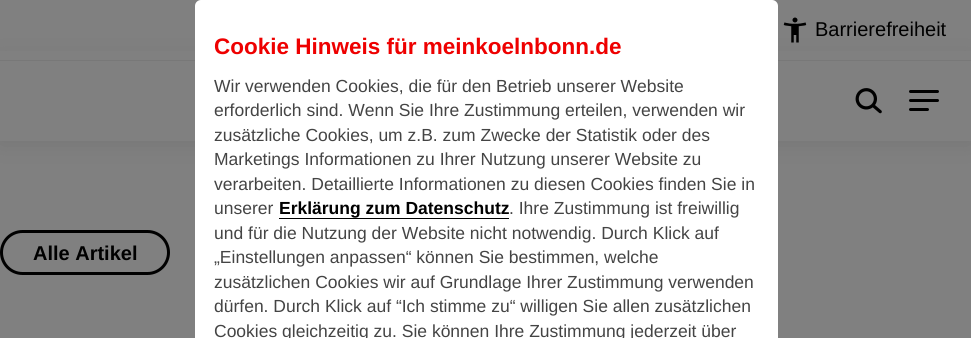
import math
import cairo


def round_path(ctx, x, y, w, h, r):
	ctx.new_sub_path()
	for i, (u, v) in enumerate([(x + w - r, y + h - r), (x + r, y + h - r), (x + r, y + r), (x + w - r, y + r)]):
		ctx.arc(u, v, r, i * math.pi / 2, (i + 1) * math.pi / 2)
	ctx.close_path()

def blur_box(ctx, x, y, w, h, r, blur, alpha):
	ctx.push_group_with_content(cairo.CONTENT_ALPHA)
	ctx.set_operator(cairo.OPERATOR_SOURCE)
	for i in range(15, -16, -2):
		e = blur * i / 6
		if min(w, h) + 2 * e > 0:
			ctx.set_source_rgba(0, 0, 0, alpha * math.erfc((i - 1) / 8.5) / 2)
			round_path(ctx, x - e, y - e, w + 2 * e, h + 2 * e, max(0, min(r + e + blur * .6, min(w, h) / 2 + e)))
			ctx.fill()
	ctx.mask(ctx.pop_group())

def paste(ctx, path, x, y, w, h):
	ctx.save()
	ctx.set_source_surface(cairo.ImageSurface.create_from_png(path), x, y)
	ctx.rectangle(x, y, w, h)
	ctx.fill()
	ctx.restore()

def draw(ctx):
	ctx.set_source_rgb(0.502, 0.502, 0.502)
	ctx.paint()
	ctx.set_source_rgb(0, 0, 0)
	blur_box(ctx, 0, 61, 971, 80, 0, 12.5, 0.1)
	ctx.set_source_rgb(0.502, 0.502, 0.502)
	ctx.rectangle(0, 51, 971, 9)
	ctx.fill()
	ctx.set_source_rgb(0.471, 0.471, 0.471)
	ctx.rectangle(0, 60, 971, 1)
	ctx.fill()
	paste(ctx, 'media/1.png', 783, 17, 24, 26)
	ctx.select_font_face('Liberation Sans')
	ctx.set_font_size(20)
	ctx.set_source_rgb(0, 0, 0)
	ctx.move_to(815, 36)
	ctx.show_text('Barrierefreiheit')
	ctx.set_source_rgb(0.502, 0.502, 0.502)
	ctx.rectangle(0, 61, 971, 80)
	ctx.fill()
	paste(ctx, 'media/2.png', 855, 88, 27, 26)
	ctx.set_source_rgb(0, 0, 0)
	round_path(ctx, 909, 90, 30, 3, 1.5)
	ctx.fill()
	round_path(ctx, 909, 99, 30, 3, 1.5)
	ctx.fill()
	round_path(ctx, 909, 108, 20, 3, 1.5)
	ctx.fill()
	round_path(ctx, 1.5, 231.5, 167, 42, 21)
	ctx.set_line_width(3)
	ctx.stroke()
	ctx.select_font_face('Liberation Sans', cairo.FONT_SLANT_NORMAL, cairo.FONT_WEIGHT_BOLD)
	ctx.move_to(33, 260)
	ctx.show_text('Alle Artikel')
	ctx.set_source_rgb(1, 1, 1)
	round_path(ctx, 195, 0, 583, 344, 6)
	ctx.fill()
	ctx.set_font_size(22.5)
	ctx.set_source_rgb(0.933, 0, 0)
	ctx.move_to(214, 54)
	ctx.show_text('Cookie Hinweis für meinkoelnbonn.de')
	ctx.select_font_face('Liberation Sans')
	ctx.set_font_size(17.5)
	ctx.set_source_rgb(0.267, 0.267, 0.267)
	for x, y, s in [
		(214, 92, 'Wir verwenden Cookies, die für den Betrieb unserer Website'),
		(214, 116, 'erforderlich sind. Wenn Sie Ihre Zustimmung erteilen, verwenden wir'),
		(214, 141, 'zusätzliche Cookies, um z.B. zum Zwecke der Statistik oder des'),
		(214, 165, 'Marketings Informationen zu Ihrer Nutzung unserer Website zu'),
		(214, 190, 'verarbeiten. Detaillierte Informationen zu diesen Cookies finden Sie in'),
		(214, 214, 'unserer'),
	]:
		ctx.move_to(x, y)
		ctx.show_text(s)
	ctx.select_font_face('Liberation Sans', cairo.FONT_SLANT_NORMAL, cairo.FONT_WEIGHT_BOLD)
	ctx.set_source_rgb(0, 0, 0)
	ctx.move_to(279, 214)
	ctx.show_text('Erklärung zum Datenschutz')
	ctx.rectangle(279, 218, 230, 1)
	ctx.fill()
	ctx.select_font_face('Liberation Sans')
	ctx.set_source_rgb(0.267, 0.267, 0.267)
	for x, y, s in [
		(509, 214, '. Ihre Zustimmung ist freiwillig'),
		(214, 239, 'und für die Nutzung der Website nicht notwendig. Durch Klick auf'),
		(214, 263, '„Einstellungen anpassen“ können Sie bestimmen, welche'),
		(214, 288, 'zusätzlichen Cookies wir auf Grundlage Ihrer Zustimmung verwenden'),
		(214, 312, 'dürfen. Durch Klick auf “Ich stimme zu“ willigen Sie allen zusätzlichen'),
		(214, 337, 'Cookies gleichzeitig zu. Sie können Ihre Zustimmung jederzeit über'),
	]:
		ctx.move_to(x, y)
		ctx.show_text(s)


surface = cairo.ImageSurface(cairo.FORMAT_RGB24, 971, 338)
ctx = cairo.Context(surface)
options = cairo.FontOptions()
options.set_hint_metrics(cairo.HINT_METRICS_OFF)
options.set_hint_style(cairo.HINT_STYLE_NONE)
ctx.set_font_options(options)
ctx.set_miter_limit(4)
draw(ctx)
surface.write_to_png('image.png')
